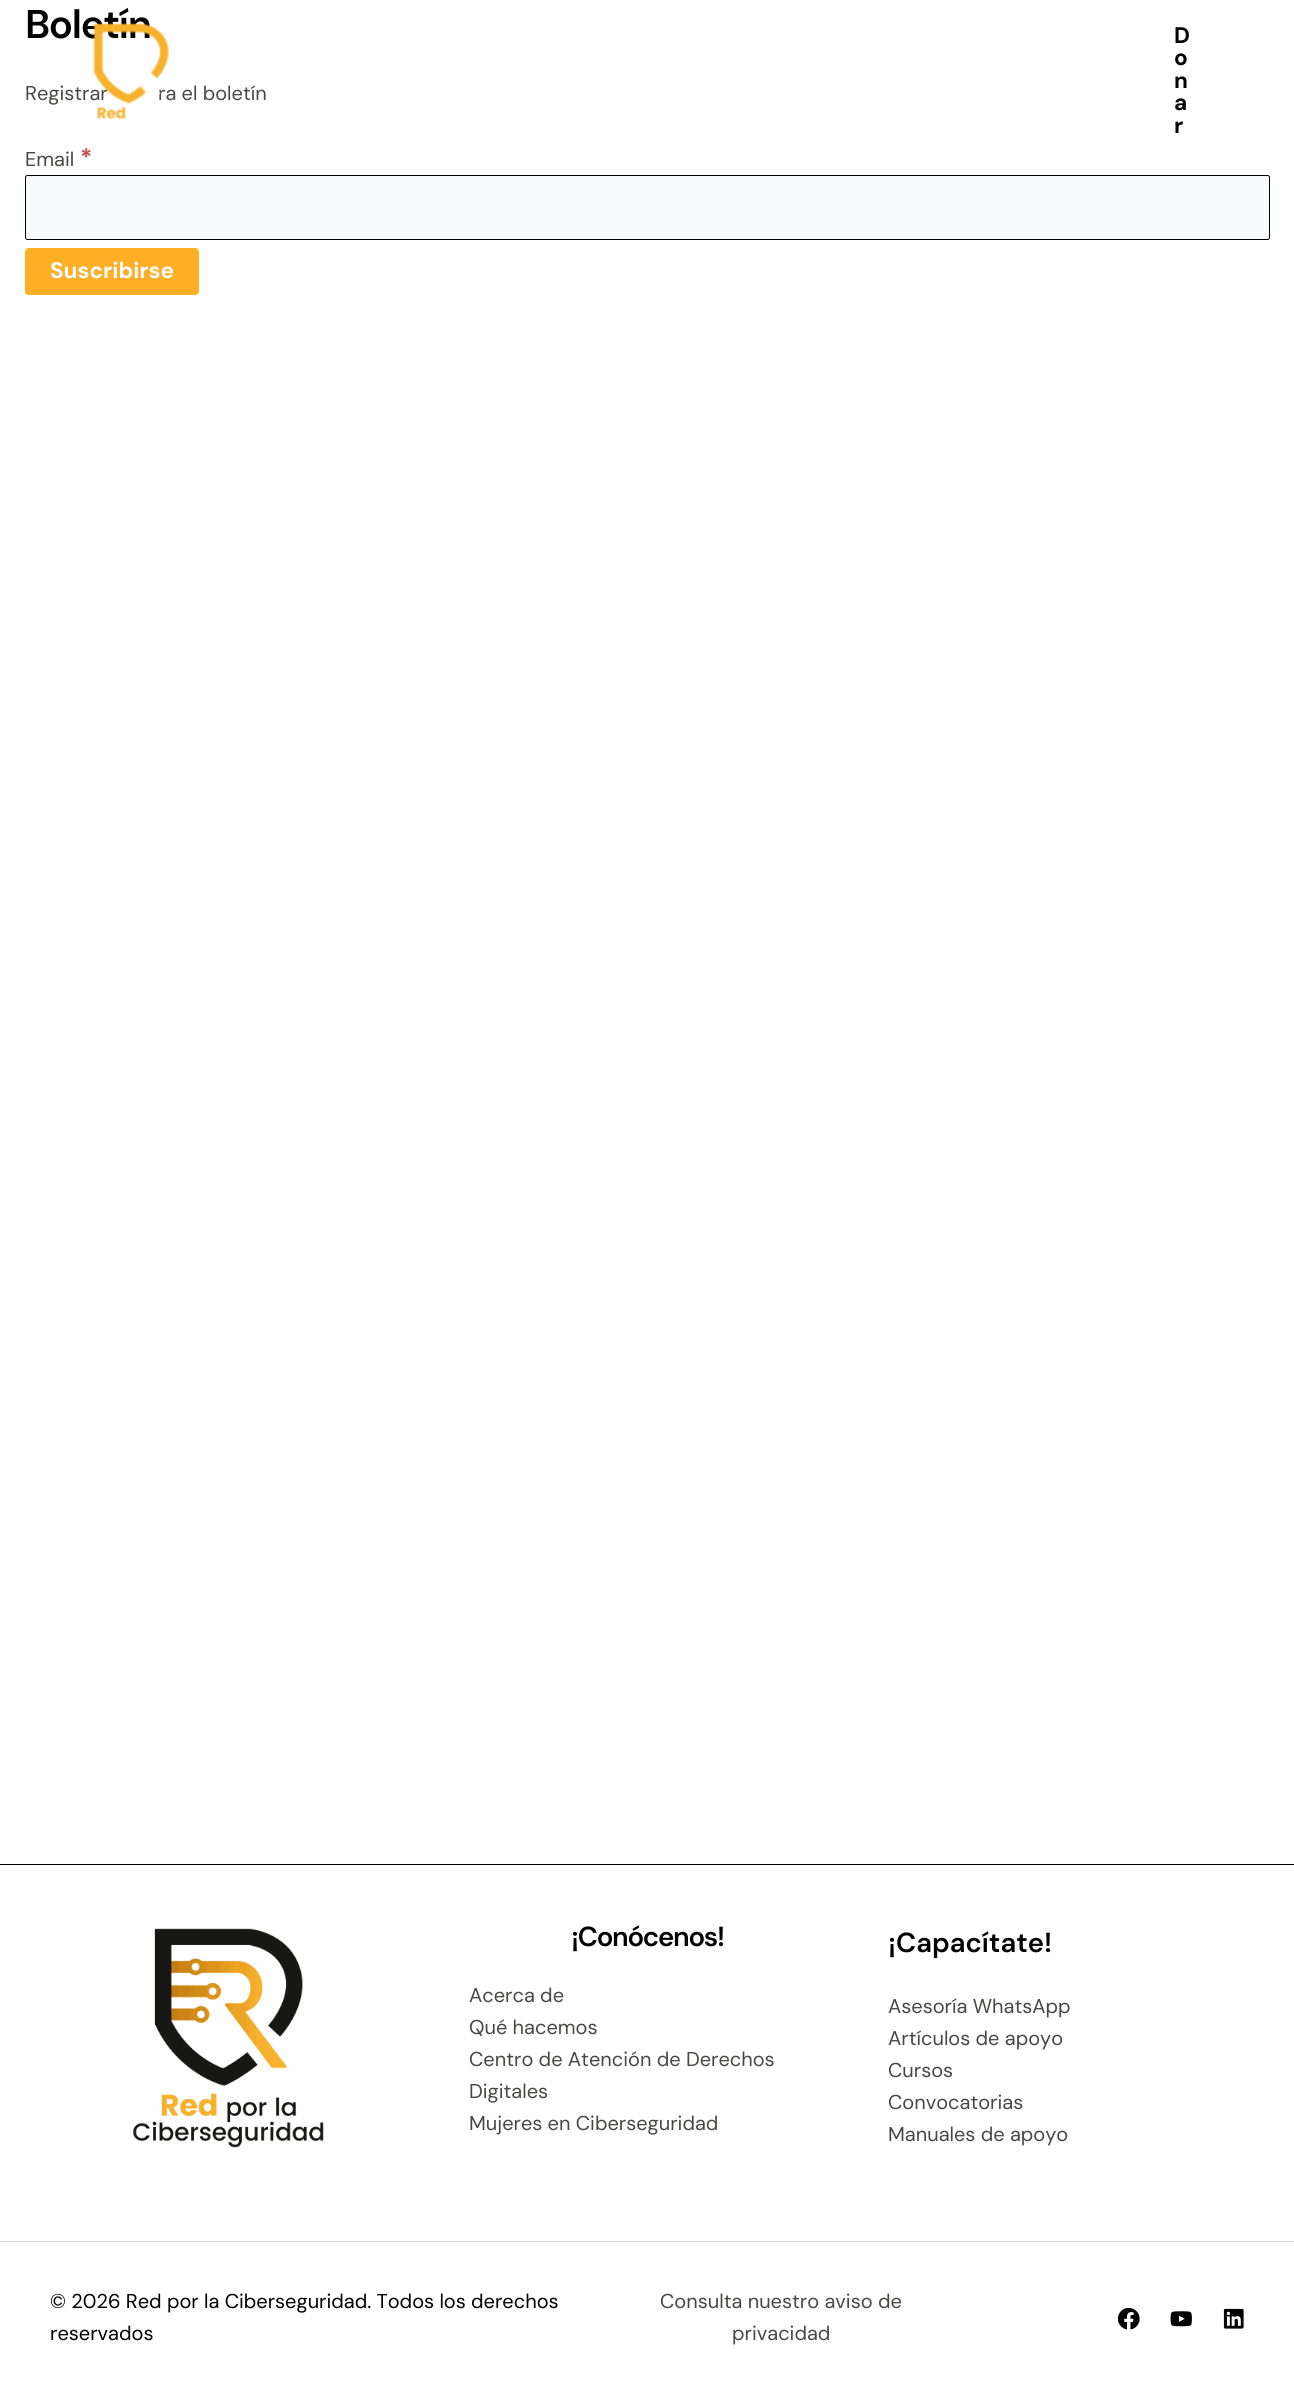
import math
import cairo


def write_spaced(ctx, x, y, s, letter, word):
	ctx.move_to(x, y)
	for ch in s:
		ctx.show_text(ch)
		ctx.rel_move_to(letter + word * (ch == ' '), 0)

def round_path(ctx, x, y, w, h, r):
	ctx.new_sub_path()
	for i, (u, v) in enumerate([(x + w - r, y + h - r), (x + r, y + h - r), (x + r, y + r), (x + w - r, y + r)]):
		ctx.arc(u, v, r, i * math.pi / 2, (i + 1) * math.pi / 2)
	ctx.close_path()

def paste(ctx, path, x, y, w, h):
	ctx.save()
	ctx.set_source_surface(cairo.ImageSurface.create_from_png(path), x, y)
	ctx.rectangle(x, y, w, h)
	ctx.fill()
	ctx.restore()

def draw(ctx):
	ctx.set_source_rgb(1, 1, 1)
	ctx.paint()
	ctx.select_font_face('DM Sans SemiBold')
	ctx.set_font_size(40)
	ctx.set_source_rgb(0, 0, 0)
	write_spaced(ctx, 25, 38, 'Boletín', -1.25, 0)
	ctx.select_font_face('DM Sans')
	ctx.set_font_size(20)
	ctx.set_source_rgb(0.294, 0.275, 0.275)
	for x, y, s in [
		(25, 100, 'Registrar'),
		(158, 100, 'ra el boletín'),
		(25, 166, 'Email'),
	]:
		ctx.move_to(x, y)
		ctx.show_text(s)
	ctx.select_font_face('DM Sans', cairo.FONT_SLANT_NORMAL, cairo.FONT_WEIGHT_BOLD)
	ctx.set_font_size(24)
	ctx.set_source_rgb(0.749, 0.302, 0.302)
	ctx.move_to(80, 166)
	ctx.show_text('*')
	ctx.set_source_rgb(0.976, 0.98, 0.984)
	round_path(ctx, 25.5, 175.5, 1244, 64, 2)
	ctx.fill_preserve()
	ctx.set_source_rgb(0, 0, 0)
	ctx.set_line_width(1)
	ctx.stroke()
	ctx.set_source_rgb(1, 0.686, 0.145)
	round_path(ctx, 25, 248, 174, 47, 4)
	ctx.fill()
	ctx.set_font_size(22.5)
	ctx.set_source_rgb(1, 1, 1)
	ctx.move_to(50, 278)
	ctx.show_text('Suscribirse')
	paste(ctx, 'media/1.png', 93, 23, 83, 112)
	ctx.set_source_rgb(0, 0, 0)
	for x, y, s in [
		(1174, 43, 'D'),
		(1174, 65, 'o'),
		(1174, 88, 'n'),
		(1174, 110, 'a'),
		(1174, 133, 'r'),
	]:
		ctx.move_to(x, y)
		ctx.show_text(s)
	ctx.rectangle(0, 1864, 1294, 1)
	ctx.fill()
	paste(ctx, 'media/2.png', 132, 1928, 192, 220)
	ctx.select_font_face('DM Sans SemiBold')
	ctx.set_font_size(27.5)
	write_spaced(ctx, 571, 1946, '¡Conócenos!', -1.25, 0)
	ctx.select_font_face('DM Sans')
	ctx.set_font_size(20)
	ctx.set_source_rgb(0.294, 0.275, 0.275)
	for x, y, s in [
		(469, 2002, 'Acerca de'),
		(469, 2034, 'Qué hacemos'),
		(469, 2066, 'Centro de Atención de Derechos'),
		(469, 2098, 'Digitales'),
		(469, 2130, 'Mujeres en Ciberseguridad'),
	]:
		ctx.move_to(x, y)
		ctx.show_text(s)
	ctx.select_font_face('DM Sans SemiBold')
	ctx.set_font_size(27.5)
	ctx.set_source_rgb(0, 0, 0)
	ctx.move_to(888, 1952)
	ctx.show_text('¡Capacítate!')
	ctx.select_font_face('DM Sans')
	ctx.set_font_size(20)
	ctx.set_source_rgb(0.294, 0.275, 0.275)
	for x, y, s in [
		(888, 2013, 'Asesoría WhatsApp'),
		(888, 2045, 'Artículos de apoyo'),
		(888, 2077, 'Cursos'),
		(888, 2109, 'Convocatorias'),
		(888, 2141, 'Manuales de apoyo'),
	]:
		ctx.move_to(x, y)
		ctx.show_text(s)
	ctx.set_source_rgb(0.827, 0.839, 0.796)
	ctx.rectangle(0, 2241, 1294, 1)
	ctx.fill()
	ctx.set_source_rgb(0, 0, 0)
	ctx.move_to(50, 2308)
	ctx.show_text('© 2026 Red por la Ciberseguridad. Todos los derechos')
	ctx.move_to(50, 2340)
	ctx.show_text('reservados')
	ctx.set_source_rgb(0.294, 0.275, 0.275)
	ctx.move_to(660, 2308)
	ctx.show_text('Consulta nuestro aviso de')
	ctx.move_to(732, 2340)
	ctx.show_text('privacidad')
	paste(ctx, 'media/3.png', 1118, 2308, 22, 22)
	paste(ctx, 'media/4.png', 1170, 2311, 22, 16)
	paste(ctx, 'media/5.png', 1223, 2308, 21, 21)


surface = cairo.ImageSurface(cairo.FORMAT_RGB24, 1294, 2392)
ctx = cairo.Context(surface)
options = cairo.FontOptions()
options.set_hint_metrics(cairo.HINT_METRICS_OFF)
options.set_hint_style(cairo.HINT_STYLE_NONE)
ctx.set_font_options(options)
ctx.set_miter_limit(4)
draw(ctx)
surface.write_to_png('image.png')
